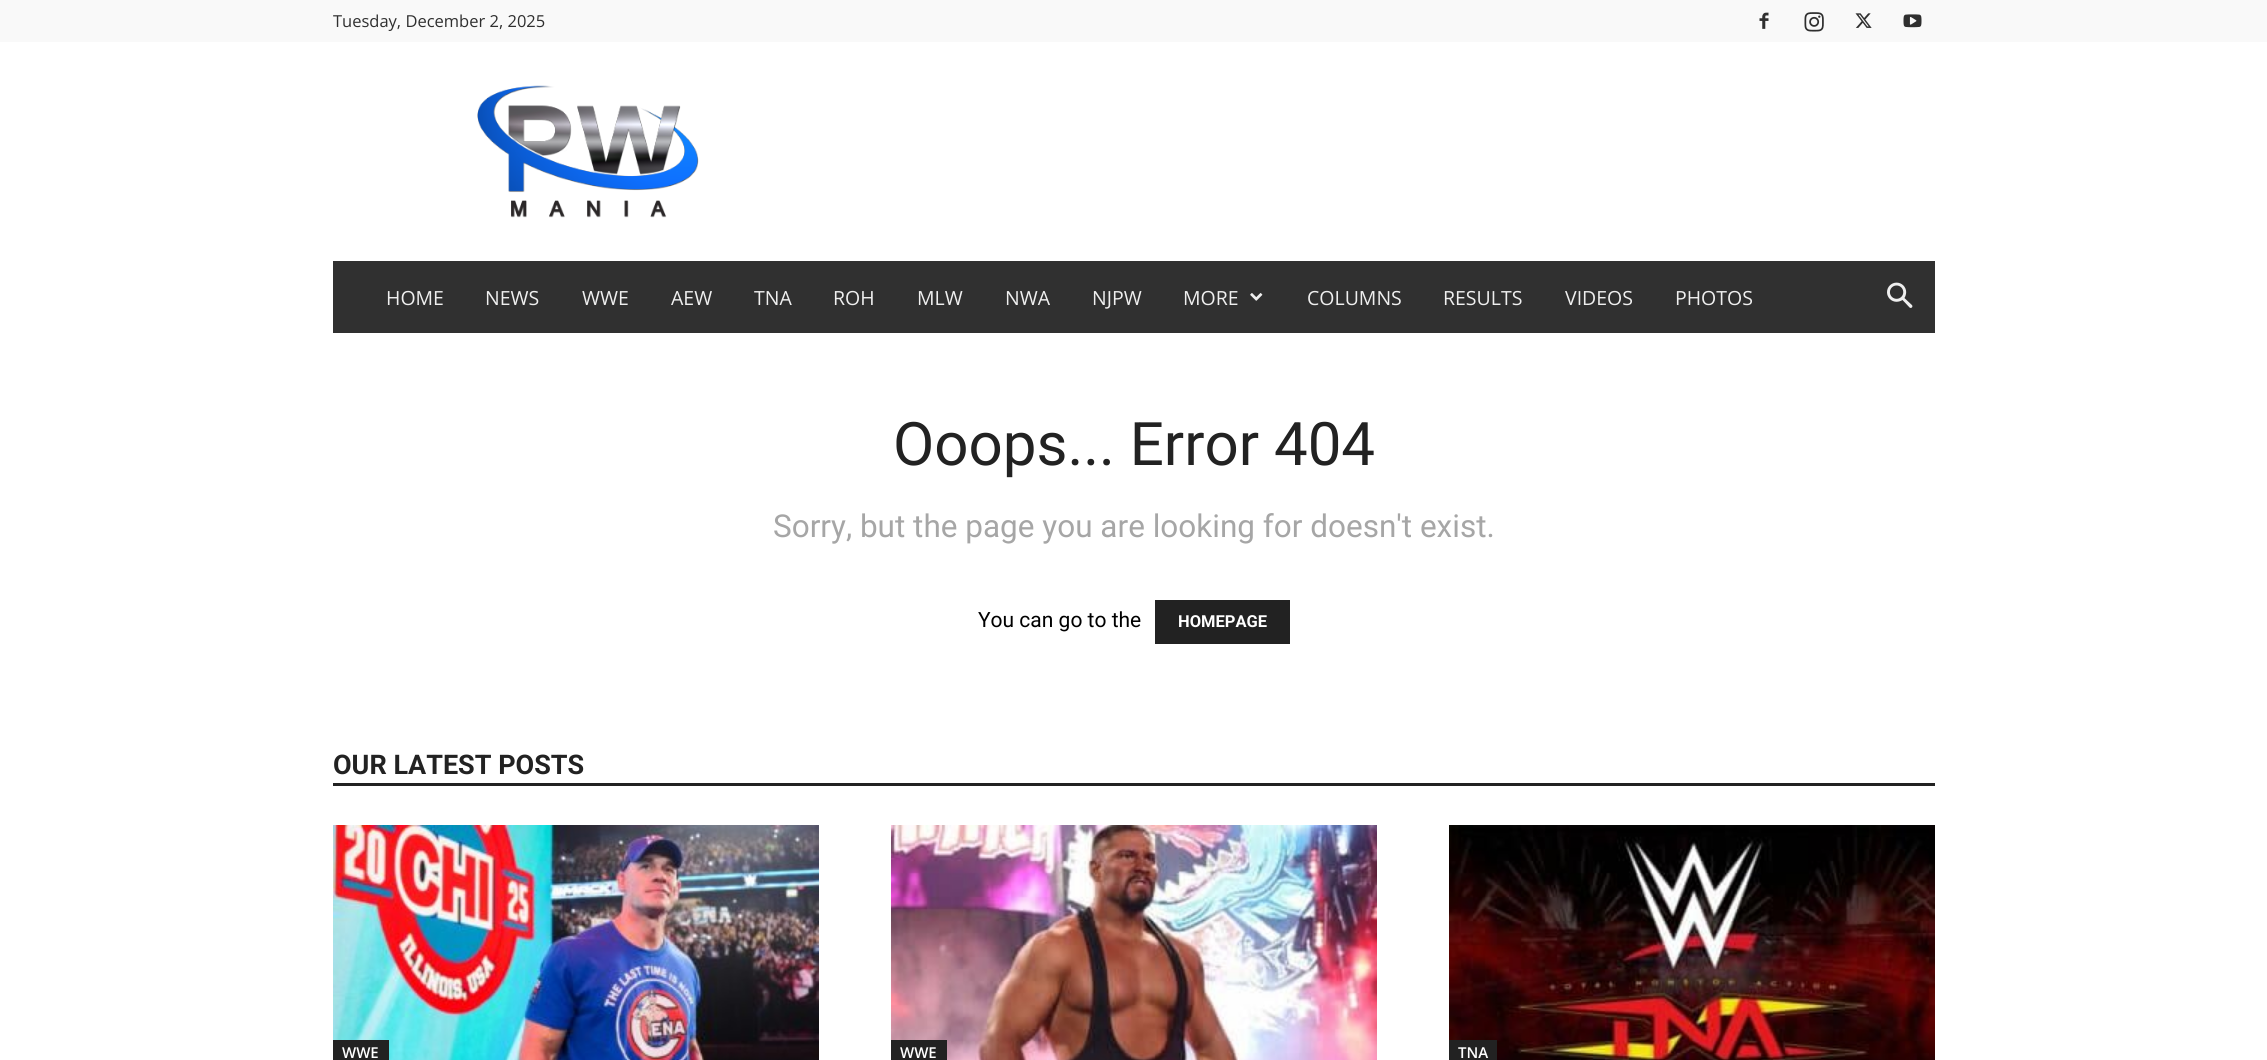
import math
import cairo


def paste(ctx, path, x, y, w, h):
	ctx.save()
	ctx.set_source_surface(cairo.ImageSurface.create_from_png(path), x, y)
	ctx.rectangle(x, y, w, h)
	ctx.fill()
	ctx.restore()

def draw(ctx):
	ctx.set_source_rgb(1, 1, 1)
	ctx.paint()
	ctx.set_source_rgb(0.976, 0.976, 0.976)
	ctx.rectangle(0, 0, 2267, 42)
	ctx.fill()
	ctx.select_font_face('Open Sans')
	ctx.set_font_size(16.5)
	ctx.set_source_rgb(0.184, 0.184, 0.184)
	ctx.move_to(333, 27)
	ctx.show_text('Tuesday, December 2, 2025')
	paste(ctx, 'media/1.png', 1759, 12, 10, 17)
	paste(ctx, 'media/2.png', 1804, 12, 20, 20)
	paste(ctx, 'media/3.png', 1855, 13, 17, 15)
	paste(ctx, 'media/4.png', 1903, 14, 19, 14)
	paste(ctx, 'media/5.png', 477, 85, 222, 133)
	ctx.set_source_rgb(0.188, 0.188, 0.188)
	ctx.rectangle(333, 261, 1602, 72)
	ctx.fill()
	ctx.set_font_size(19.5)
	ctx.set_source_rgb(0.937, 0.937, 0.937)
	for x, y, s in [
		(386, 305, 'HOME'),
		(485, 305, 'NEWS'),
		(582, 305, 'WWE'),
		(671, 305, 'AEW'),
		(754, 305, 'TNA'),
		(833, 305, 'ROH'),
		(917, 305, 'MLW'),
		(1005, 305, 'NWA'),
		(1092, 305, 'NJPW'),
		(1183, 305, 'MORE'),
	]:
		ctx.move_to(x, y)
		ctx.show_text(s)
	paste(ctx, 'media/6.png', 1250, 293, 13, 8)
	for x, y, s in [
		(1307, 305, 'COLUMNS'),
		(1443, 305, 'RESULTS'),
		(1565, 305, 'VIDEOS'),
		(1675, 305, 'PHOTOS'),
	]:
		ctx.move_to(x, y)
		ctx.show_text(s)
	paste(ctx, 'media/7.png', 1887, 282, 26, 26)
	ctx.select_font_face('Roboto')
	ctx.set_font_size(60)
	ctx.set_source_rgb(0.133, 0.133, 0.133)
	ctx.move_to(893, 465)
	ctx.show_text('Ooops... Error 404')
	ctx.set_font_size(31.5)
	ctx.set_source_rgb(0.651, 0.651, 0.651)
	ctx.move_to(773, 537)
	ctx.show_text('Sorry, but the page you are looking for doesn\'t exist.')
	ctx.set_font_size(21)
	ctx.set_source_rgb(0, 0, 0)
	ctx.move_to(978, 627)
	ctx.show_text('You can go to the')
	ctx.set_source_rgb(0.133, 0.133, 0.133)
	ctx.rectangle(1155, 600, 135, 44)
	ctx.fill()
	ctx.select_font_face('Roboto', cairo.FONT_SLANT_NORMAL, cairo.FONT_WEIGHT_BOLD)
	ctx.set_font_size(16.5)
	ctx.set_source_rgb(1, 1, 1)
	ctx.move_to(1178, 627)
	ctx.show_text('HOMEPAGE')
	ctx.set_source_rgb(0.133, 0.133, 0.133)
	ctx.rectangle(333, 783, 1602, 3)
	ctx.fill()
	ctx.set_font_size(27)
	ctx.move_to(333, 774)
	ctx.show_text('OUR LATEST POSTS')
	paste(ctx, 'media/8.png', 333, 825, 486, 235)
	ctx.rectangle(333, 1040, 56, 20)
	ctx.fill()
	ctx.select_font_face('Open Sans SemiBold')
	ctx.set_font_size(15)
	ctx.set_source_rgb(1, 1, 1)
	ctx.move_to(342, 1058)
	ctx.show_text('WWE')
	paste(ctx, 'media/9.png', 891, 825, 486, 235)
	ctx.set_source_rgb(0.133, 0.133, 0.133)
	ctx.rectangle(891, 1040, 56, 20)
	ctx.fill()
	ctx.set_source_rgb(1, 1, 1)
	ctx.move_to(900, 1058)
	ctx.show_text('WWE')
	paste(ctx, 'media/10.png', 1449, 825, 486, 235)
	ctx.set_source_rgb(0.133, 0.133, 0.133)
	ctx.rectangle(1449, 1040, 48, 20)
	ctx.fill()
	ctx.set_source_rgb(1, 1, 1)
	ctx.move_to(1458, 1058)
	ctx.show_text('TNA')


surface = cairo.ImageSurface(cairo.FORMAT_RGB24, 2267, 1060)
ctx = cairo.Context(surface)
options = cairo.FontOptions()
options.set_hint_metrics(cairo.HINT_METRICS_OFF)
options.set_hint_style(cairo.HINT_STYLE_NONE)
ctx.set_font_options(options)
ctx.set_miter_limit(4)
draw(ctx)
surface.write_to_png('image.png')
